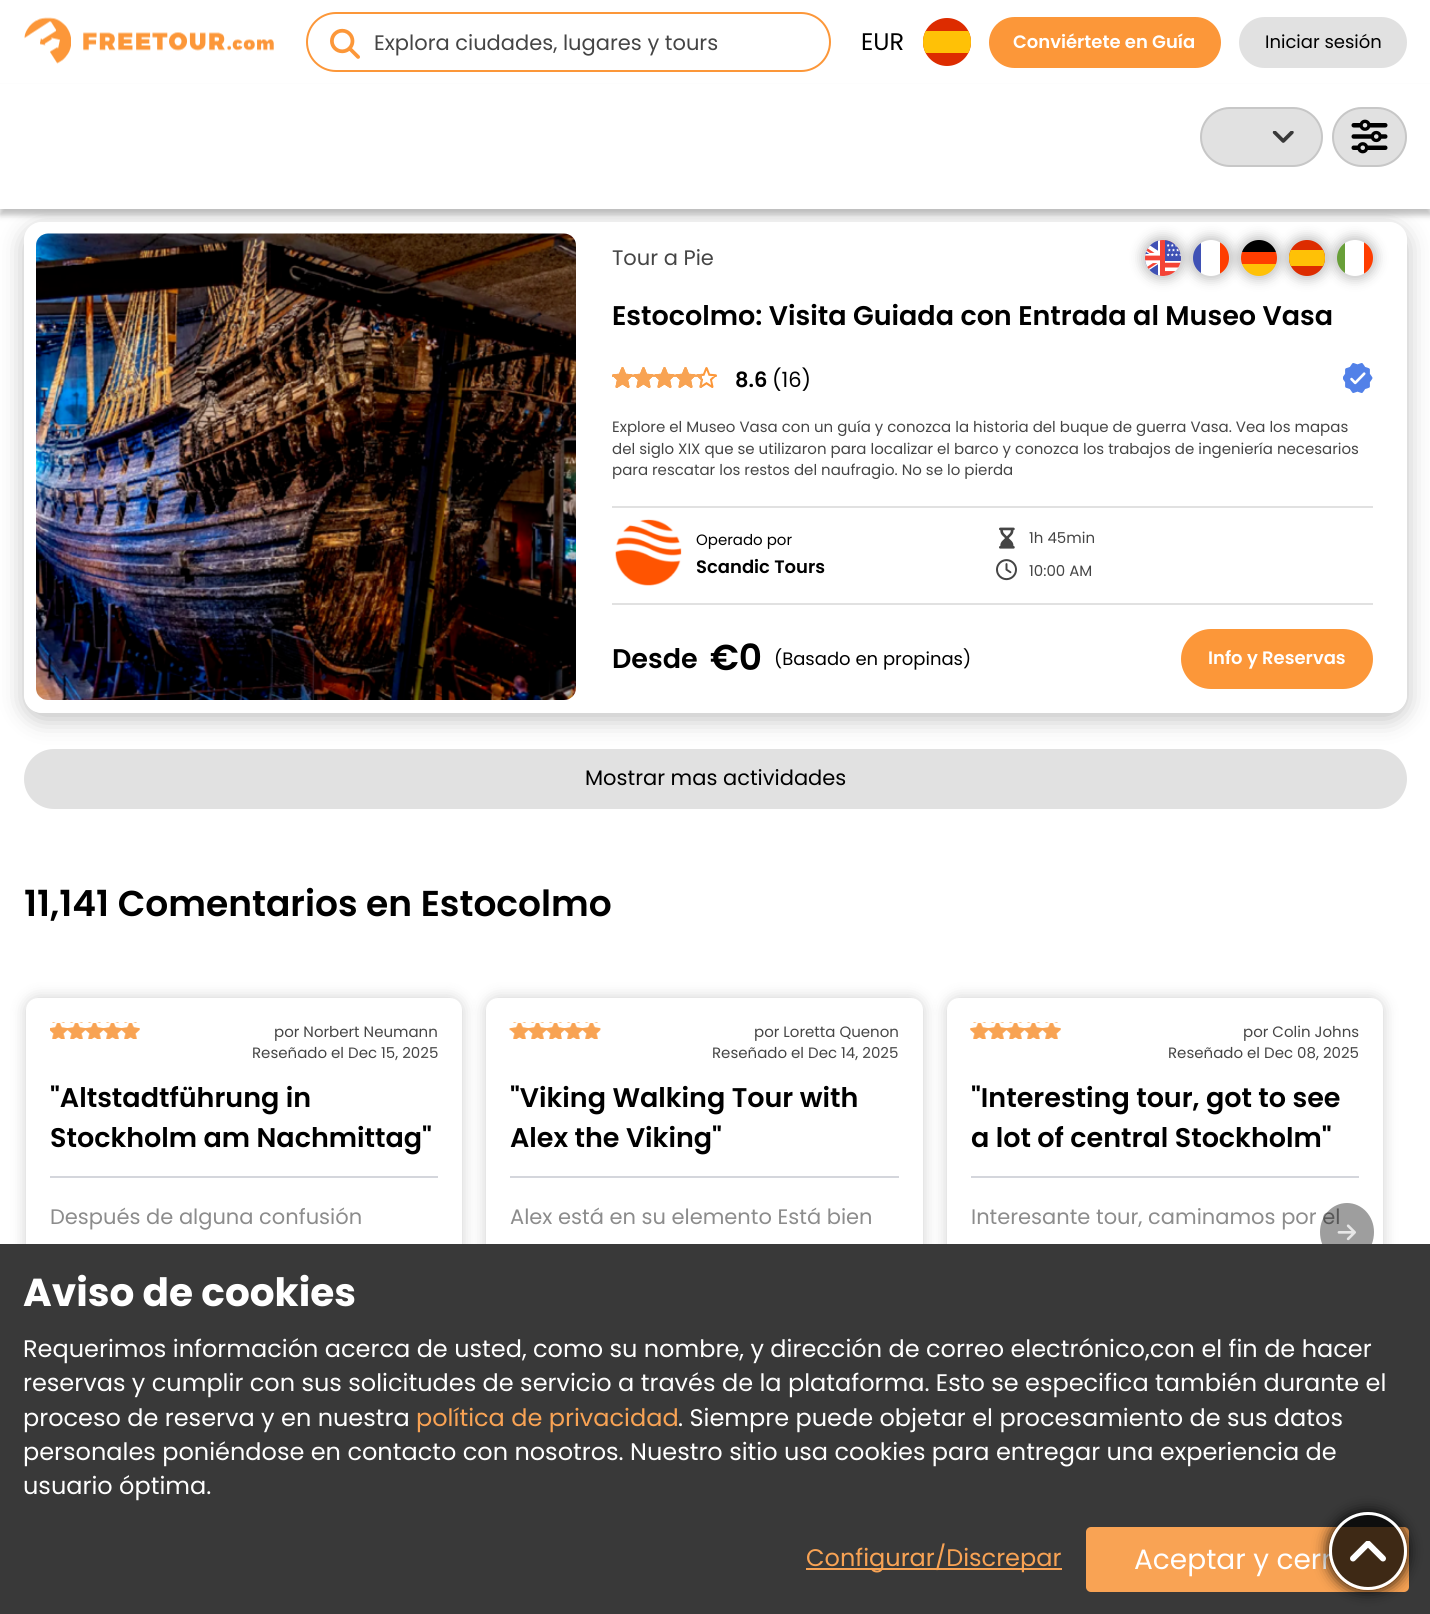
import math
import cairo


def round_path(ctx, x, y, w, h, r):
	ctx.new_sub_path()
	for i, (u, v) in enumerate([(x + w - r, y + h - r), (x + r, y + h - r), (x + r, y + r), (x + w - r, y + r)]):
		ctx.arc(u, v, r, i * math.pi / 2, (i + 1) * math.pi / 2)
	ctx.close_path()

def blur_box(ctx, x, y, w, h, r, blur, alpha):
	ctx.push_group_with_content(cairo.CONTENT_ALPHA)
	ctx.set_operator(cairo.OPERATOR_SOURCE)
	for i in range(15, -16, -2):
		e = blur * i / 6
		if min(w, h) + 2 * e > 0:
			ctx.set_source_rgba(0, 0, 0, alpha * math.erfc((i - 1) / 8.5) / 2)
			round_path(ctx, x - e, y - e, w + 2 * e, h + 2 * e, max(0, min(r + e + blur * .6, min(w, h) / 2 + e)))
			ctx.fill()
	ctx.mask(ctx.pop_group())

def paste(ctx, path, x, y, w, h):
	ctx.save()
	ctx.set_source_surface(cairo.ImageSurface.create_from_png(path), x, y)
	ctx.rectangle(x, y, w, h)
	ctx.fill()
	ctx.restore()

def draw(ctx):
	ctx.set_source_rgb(1, 1, 1)
	ctx.paint()
	paste(ctx, 'media/1.png', 24, 17, 250, 47)
	round_path(ctx, 307, 13, 523, 58, 29)
	ctx.set_source_rgb(0.988, 0.592, 0.224)
	ctx.stroke()
	paste(ctx, 'media/2.png', 330, 28, 30, 31)
	ctx.select_font_face('Poppins')
	ctx.set_font_size(21)
	ctx.set_source_rgb(0.271, 0.271, 0.271)
	ctx.move_to(374, 50)
	ctx.show_text('Explora ciudades, lugares y tours')
	ctx.set_font_size(24)
	ctx.set_source_rgb(0, 0, 0)
	ctx.move_to(861, 50)
	ctx.show_text('EUR')
	ctx.set_source_rgb(0.867, 0.173, 0)
	ctx.new_path()
	ctx.arc(947, 42, 24, 0, 2 * math.pi)
	ctx.fill()
	ctx.save()
	round_path(ctx, 923, 18, 48, 48, 24)
	ctx.clip()
	ctx.set_source_rgb(1, 0.757, 0.027)
	ctx.rectangle(923, 31, 48, 22)
	ctx.fill()
	ctx.restore()
	ctx.set_source_rgb(0.988, 0.592, 0.224)
	round_path(ctx, 990, 18, 230, 49, 24.5)
	ctx.fill_preserve()
	ctx.stroke()
	ctx.select_font_face('Poppins SemiBold')
	ctx.set_font_size(18)
	ctx.set_source_rgb(1, 1, 1)
	ctx.move_to(1013, 48)
	ctx.show_text('Conviértete en Guía')
	ctx.set_source_rgb(0.882, 0.882, 0.882)
	round_path(ctx, 1240, 18, 166, 49, 24.5)
	ctx.fill_preserve()
	ctx.stroke()
	ctx.select_font_face('Poppins')
	ctx.set_source_rgb(0, 0, 0)
	ctx.move_to(1265, 48)
	ctx.show_text('Iniciar sesión')
	ctx.set_source_rgb(0, 0, 0)
	blur_box(ctx, 0, 89, 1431, 126, 0, 3, 0.25)
	ctx.set_source_rgb(0.882, 0.882, 0.882)
	round_path(ctx, 25, 750, 1381, 58, 29)
	ctx.fill_preserve()
	ctx.stroke()
	ctx.save()
	ctx.set_fill_rule(cairo.FILL_RULE_EVEN_ODD)
	ctx.new_path()
	ctx.move_to(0, 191)
	ctx.line_to(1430, 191)
	ctx.line_to(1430, 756)
	ctx.line_to(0, 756)
	ctx.close_path()
	ctx.move_to(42, 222)
	ctx.line_to(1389, 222)
	ctx.curve_to(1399, 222, 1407, 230, 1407, 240)
	ctx.line_to(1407, 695)
	ctx.curve_to(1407, 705, 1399, 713, 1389, 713)
	ctx.line_to(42, 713)
	ctx.curve_to(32, 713, 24, 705, 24, 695)
	ctx.line_to(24, 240)
	ctx.curve_to(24, 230, 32, 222, 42, 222)
	ctx.close_path()
	ctx.clip()
	ctx.set_source_rgb(0, 0, 0)
	blur_box(ctx, 24, 228, 1383, 491, 18, 12, 0.25)
	ctx.restore()
	ctx.set_source_rgb(1, 1, 1)
	ctx.rectangle(0, 84, 1430, 125)
	ctx.fill()
	ctx.set_source_rgb(0.882, 0.882, 0.882)
	round_path(ctx, 1200, 107, 123, 60, 30)
	ctx.fill()
	round_path(ctx, 1201, 108, 121, 58, 29)
	ctx.set_source_rgba(0, 0, 0, 0.12)
	ctx.stroke()
	paste(ctx, 'media/3.png', 1272, 131, 22, 12)
	ctx.set_source_rgb(0.882, 0.882, 0.882)
	round_path(ctx, 1332, 107, 75, 60, 30)
	ctx.fill()
	round_path(ctx, 1333, 108, 73, 58, 29)
	ctx.set_source_rgba(0, 0, 0, 0.12)
	ctx.stroke()
	paste(ctx, 'media/4.png', 1351, 119, 37, 35)
	paste(ctx, 'media/5.png', 36, 233, 540, 467)
	ctx.set_font_size(21)
	ctx.set_source_rgb(0.271, 0.271, 0.271)
	ctx.move_to(612, 265)
	ctx.show_text('Tour a Pie')
	ctx.set_source_rgb(0, 0, 0)
	blur_box(ctx, 1142, 237, 42, 42, 21, 6, 0.25)
	paste(ctx, 'media/6.png', 1145, 240, 36, 36)
	blur_box(ctx, 1190, 237, 42, 42, 21, 6, 0.25)
	ctx.save()
	round_path(ctx, 1193, 240, 36, 36, 18)
	ctx.clip()
	ctx.set_source_rgb(1, 1, 1)
	ctx.rectangle(1201, 240, 19, 36)
	ctx.fill()
	ctx.set_source_rgb(1, 0.239, 0)
	ctx.rectangle(1220, 242, 9, 32)
	ctx.fill()
	ctx.set_source_rgb(0.247, 0.318, 0.71)
	ctx.rectangle(1193, 240, 8, 36)
	ctx.fill()
	ctx.restore()
	blur_box(ctx, 1238, 237, 42, 42, 21, 6, 0.25)
	ctx.save()
	round_path(ctx, 1241, 240, 36, 36, 18)
	ctx.clip()
	ctx.set_source_rgb(1, 0.757, 0.027)
	ctx.rectangle(1242, 264, 34, 12)
	ctx.fill()
	ctx.set_source_rgb(1, 0.239, 0)
	ctx.rectangle(1241, 252, 36, 12)
	ctx.fill()
	ctx.set_source_rgb(0, 0, 0)
	ctx.rectangle(1242, 240, 34, 12)
	ctx.fill()
	ctx.restore()
	blur_box(ctx, 1286, 237, 42, 42, 21, 6, 0.25)
	ctx.set_source_rgb(0.867, 0.173, 0)
	ctx.arc(1307, 258, 18, 0, 2 * math.pi)
	ctx.fill()
	ctx.save()
	round_path(ctx, 1289, 240, 36, 36, 18)
	ctx.clip()
	ctx.set_source_rgb(1, 0.757, 0.027)
	ctx.rectangle(1289, 250, 36, 16)
	ctx.fill()
	ctx.restore()
	ctx.set_source_rgb(0, 0, 0)
	blur_box(ctx, 1334, 237, 42, 42, 21, 6, 0.25)
	ctx.save()
	round_path(ctx, 1337, 240, 36, 36, 18)
	ctx.clip()
	ctx.set_source_rgb(1, 1, 1)
	ctx.rectangle(1345, 240, 19, 36)
	ctx.fill()
	ctx.set_source_rgb(1, 0.239, 0)
	ctx.rectangle(1364, 242, 9, 32)
	ctx.fill()
	ctx.set_source_rgb(0.408, 0.624, 0.22)
	ctx.rectangle(1337, 240, 8, 36)
	ctx.fill()
	ctx.restore()
	ctx.select_font_face('Poppins SemiBold')
	ctx.set_font_size(27)
	ctx.set_source_rgb(0, 0, 0)
	ctx.move_to(612, 325)
	ctx.show_text('Estocolmo: Visita Guiada con Entrada al Museo Vasa')
	paste(ctx, 'media/7.png', 612, 367, 105, 21)
	paste(ctx, 'media/8.png', 612, 367, 90, 21)
	ctx.set_font_size(21)
	ctx.move_to(735, 387)
	ctx.show_text('8.6')
	ctx.select_font_face('Poppins')
	ctx.move_to(772, 387)
	ctx.show_text('(16)')
	paste(ctx, 'media/9.png', 1343, 363, 30, 30)
	ctx.set_font_size(15)
	ctx.set_source_rgb(0.271, 0.271, 0.271)
	for x, y, s in [
		(612, 432, 'Explore el Museo Vasa con un guía y conozca la historia del buque de guerra Vasa. Vea los mapas'),
		(612, 454, 'del siglo XIX que se utilizaron para localizar el barco y conozca los trabajos de ingeniería necesarios'),
		(612, 475, 'para rescatar los restos del naufragio. No se lo pierda'),
	]:
		ctx.move_to(x, y)
		ctx.show_text(s)
	ctx.set_source_rgb(0.882, 0.882, 0.882)
	ctx.rectangle(612, 506, 761, 2)
	ctx.fill()
	ctx.rectangle(612, 603, 761, 2)
	ctx.fill()
	paste(ctx, 'media/10.png', 615, 519, 67, 67)
	ctx.set_source_rgb(0, 0, 0)
	ctx.move_to(696, 545)
	ctx.show_text('Operado por')
	ctx.select_font_face('Poppins SemiBold')
	ctx.set_font_size(18)
	ctx.move_to(696, 573)
	ctx.show_text('Scandic Tours')
	paste(ctx, 'media/11.png', 999, 527, 16, 22)
	ctx.select_font_face('Poppins')
	ctx.set_font_size(15)
	ctx.set_source_rgb(0.271, 0.271, 0.271)
	ctx.move_to(1029, 543)
	ctx.show_text('1h 45min')
	paste(ctx, 'media/12.png', 996, 559, 21, 22)
	ctx.move_to(1029, 576)
	ctx.show_text('10:00 AM')
	ctx.select_font_face('Poppins SemiBold')
	ctx.set_font_size(27)
	ctx.set_source_rgb(0, 0, 0)
	ctx.move_to(612, 668)
	ctx.show_text('Desde')
	ctx.set_font_size(36)
	ctx.move_to(710, 670)
	ctx.show_text('€0')
	ctx.select_font_face('Poppins')
	ctx.set_font_size(18)
	ctx.move_to(774, 665)
	ctx.show_text('(Basado en propinas)')
	ctx.set_source_rgb(0.988, 0.592, 0.224)
	round_path(ctx, 1182, 630, 190, 58, 29)
	ctx.fill_preserve()
	ctx.stroke()
	ctx.select_font_face('Poppins SemiBold')
	ctx.set_source_rgb(1, 1, 1)
	ctx.move_to(1208, 664)
	ctx.show_text('Info y Reservas')
	ctx.select_font_face('Poppins')
	ctx.set_font_size(21)
	ctx.set_source_rgb(0, 0, 0)
	ctx.move_to(585, 785)
	ctx.show_text('Mostrar mas actividades')
	ctx.select_font_face('Poppins SemiBold')
	ctx.set_font_size(36)
	ctx.move_to(24, 916)
	ctx.show_text('11,141 Comentarios en Estocolmo')
	ctx.set_source_rgb(0, 0, 0)
	blur_box(ctx, 26, 998, 436, 408, 12, 7.5, 0.2)
	ctx.set_source_rgb(1, 1, 1)
	round_path(ctx, 26, 998, 436, 408, 12)
	ctx.fill()
	paste(ctx, 'media/13.png', 50, 1022, 90, 17)
	paste(ctx, 'media/14.png', 50, 1022, 90, 17)
	ctx.select_font_face('Poppins')
	ctx.set_font_size(15)
	ctx.set_source_rgb(0.271, 0.271, 0.271)
	ctx.move_to(274, 1037)
	ctx.show_text('por Norbert Neumann')
	ctx.move_to(252, 1058)
	ctx.show_text('Reseñado el Dec 15, 2025')
	ctx.select_font_face('Poppins SemiBold')
	ctx.set_font_size(27)
	ctx.set_source_rgb(0, 0, 0)
	ctx.move_to(50, 1107)
	ctx.show_text('"Altstadtführung in')
	ctx.move_to(50, 1147)
	ctx.show_text('Stockholm am Nachmittag"')
	ctx.set_source_rgb(0.831, 0.839, 0.863)
	ctx.rectangle(50, 1176, 388, 2)
	ctx.fill()
	ctx.select_font_face('Poppins')
	ctx.set_font_size(21)
	ctx.set_source_rgb(0.549, 0.549, 0.549)
	ctx.move_to(50, 1224)
	ctx.show_text('Después de alguna confusión')
	ctx.set_source_rgb(0, 0, 0)
	blur_box(ctx, 486, 998, 437, 408, 12, 7.5, 0.2)
	ctx.set_source_rgb(1, 1, 1)
	round_path(ctx, 486, 998, 437, 408, 12)
	ctx.fill()
	paste(ctx, 'media/15.png', 509, 1022, 92, 17)
	paste(ctx, 'media/16.png', 509, 1022, 92, 17)
	ctx.set_font_size(15)
	ctx.set_source_rgb(0.271, 0.271, 0.271)
	ctx.move_to(754, 1037)
	ctx.show_text('por Loretta Quenon')
	ctx.move_to(712, 1058)
	ctx.show_text('Reseñado el Dec 14, 2025')
	ctx.select_font_face('Poppins SemiBold')
	ctx.set_font_size(27)
	ctx.set_source_rgb(0, 0, 0)
	ctx.move_to(510, 1107)
	ctx.show_text('"Viking Walking Tour with')
	ctx.move_to(510, 1147)
	ctx.show_text('Alex the Viking"')
	ctx.set_source_rgb(0.831, 0.839, 0.863)
	ctx.rectangle(510, 1176, 389, 2)
	ctx.fill()
	ctx.select_font_face('Poppins')
	ctx.set_font_size(21)
	ctx.set_source_rgb(0.549, 0.549, 0.549)
	ctx.move_to(510, 1224)
	ctx.show_text('Alex está en su elemento Está bien')
	ctx.set_source_rgb(0, 0, 0)
	blur_box(ctx, 947, 998, 436, 408, 12, 7.5, 0.2)
	ctx.set_source_rgb(1, 1, 1)
	round_path(ctx, 947, 998, 436, 408, 12)
	ctx.fill()
	paste(ctx, 'media/17.png', 970, 1022, 91, 17)
	paste(ctx, 'media/18.png', 970, 1022, 91, 17)
	ctx.set_font_size(15)
	ctx.set_source_rgb(0.271, 0.271, 0.271)
	ctx.move_to(1243, 1037)
	ctx.show_text('por Colin Johns')
	ctx.move_to(1168, 1058)
	ctx.show_text('Reseñado el Dec 08, 2025')
	ctx.select_font_face('Poppins SemiBold')
	ctx.set_font_size(27)
	ctx.set_source_rgb(0, 0, 0)
	ctx.move_to(971, 1107)
	ctx.show_text('"Interesting tour, got to see')
	ctx.move_to(971, 1147)
	ctx.show_text('a lot of central Stockholm"')
	ctx.set_source_rgb(0.831, 0.839, 0.863)
	ctx.rectangle(971, 1176, 388, 2)
	ctx.fill()
	ctx.select_font_face('Poppins')
	ctx.set_font_size(21)
	ctx.set_source_rgb(0.549, 0.549, 0.549)
	ctx.move_to(971, 1224)
	ctx.show_text('Interesante tour, caminamos por el')
	ctx.set_source_rgba(0, 0, 0, 0.38)
	ctx.new_path()
	ctx.move_to(1347, 1262)
	ctx.curve_to(1332, 1262, 1320, 1249, 1320, 1232)
	ctx.curve_to(1320, 1216, 1332, 1203, 1347, 1203)
	ctx.curve_to(1362, 1203, 1374, 1216, 1374, 1232)
	ctx.curve_to(1374, 1249, 1362, 1262, 1347, 1262)
	ctx.close_path()
	ctx.fill()
	paste(ctx, 'media/19.png', 1337, 1224, 19, 17)
	ctx.set_source_rgb(0.224, 0.224, 0.224)
	ctx.rectangle(0, 1244, 1430, 370)
	ctx.fill()
	ctx.select_font_face('Poppins', cairo.FONT_SLANT_NORMAL, cairo.FONT_WEIGHT_BOLD)
	ctx.set_font_size(39)
	ctx.set_source_rgb(1, 1, 1)
	ctx.move_to(23, 1306)
	ctx.show_text('Aviso de cookies')
	ctx.select_font_face('Poppins')
	ctx.set_font_size(24)
	for x, y, s in [
		(23, 1357, 'Requerimos información acerca de usted, como su nombre, y dirección de correo electrónico,con el fin de hacer'),
		(23, 1391, 'reservas y cumplir con sus solicitudes de servicio a través de la plataforma. Esto se especifica también durante el'),
		(23, 1426, 'proceso de reserva y en nuestra'),
	]:
		ctx.move_to(x, y)
		ctx.show_text(s)
	ctx.set_source_rgb(0.973, 0.639, 0.329)
	ctx.move_to(416, 1426)
	ctx.show_text('política de privacidad')
	ctx.set_source_rgb(1, 1, 1)
	for x, y, s in [
		(678, 1426, '. Siempre puede objetar el procesamiento de sus datos'),
		(23, 1460, 'personales poniéndose en contacto con nosotros. Nuestro sitio usa cookies para entregar una experiencia de'),
		(23, 1494, 'usuario óptima.'),
	]:
		ctx.move_to(x, y)
		ctx.show_text(s)
	ctx.set_source_rgb(0.973, 0.639, 0.329)
	ctx.rectangle(806, 1568, 256, 2)
	ctx.fill()
	ctx.move_to(806, 1566)
	ctx.show_text('Configurar/Discrepar')
	round_path(ctx, 1086, 1527, 323, 65, 5)
	ctx.fill()
	ctx.set_font_size(28)
	ctx.set_source_rgb(1, 1, 1)
	ctx.move_to(1134, 1569)
	ctx.show_text('Aceptar y cerr')
	ctx.save()
	ctx.set_fill_rule(cairo.FILL_RULE_EVEN_ODD)
	ctx.new_path()
	ctx.move_to(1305, 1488)
	ctx.line_to(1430, 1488)
	ctx.line_to(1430, 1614)
	ctx.line_to(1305, 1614)
	ctx.close_path()
	ctx.move_to(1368, 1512)
	ctx.curve_to(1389.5, 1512, 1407, 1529.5, 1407, 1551)
	ctx.curve_to(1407, 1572.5, 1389.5, 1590, 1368, 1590)
	ctx.curve_to(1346.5, 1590, 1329, 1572.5, 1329, 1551)
	ctx.curve_to(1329, 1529.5, 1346.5, 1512, 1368, 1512)
	ctx.close_path()
	ctx.clip()
	ctx.set_source_rgb(0, 0, 0)
	blur_box(ctx, 1329, 1512, 78, 78, 39, 7.5, 1)
	ctx.restore()
	ctx.set_source_rgba(0, 0, 0, 0.75)
	ctx.arc(1368, 1551, 37.5, 0, 2 * math.pi)
	ctx.fill_preserve()
	ctx.set_source_rgb(1, 1, 1)
	ctx.set_line_width(3)
	ctx.stroke()
	paste(ctx, 'media/20.png', 1350, 1541, 36, 21)


surface = cairo.ImageSurface(cairo.FORMAT_RGB24, 1430, 1614)
ctx = cairo.Context(surface)
options = cairo.FontOptions()
options.set_hint_metrics(cairo.HINT_METRICS_OFF)
options.set_hint_style(cairo.HINT_STYLE_NONE)
ctx.set_font_options(options)
ctx.set_miter_limit(4)
draw(ctx)
surface.write_to_png('image.png')
